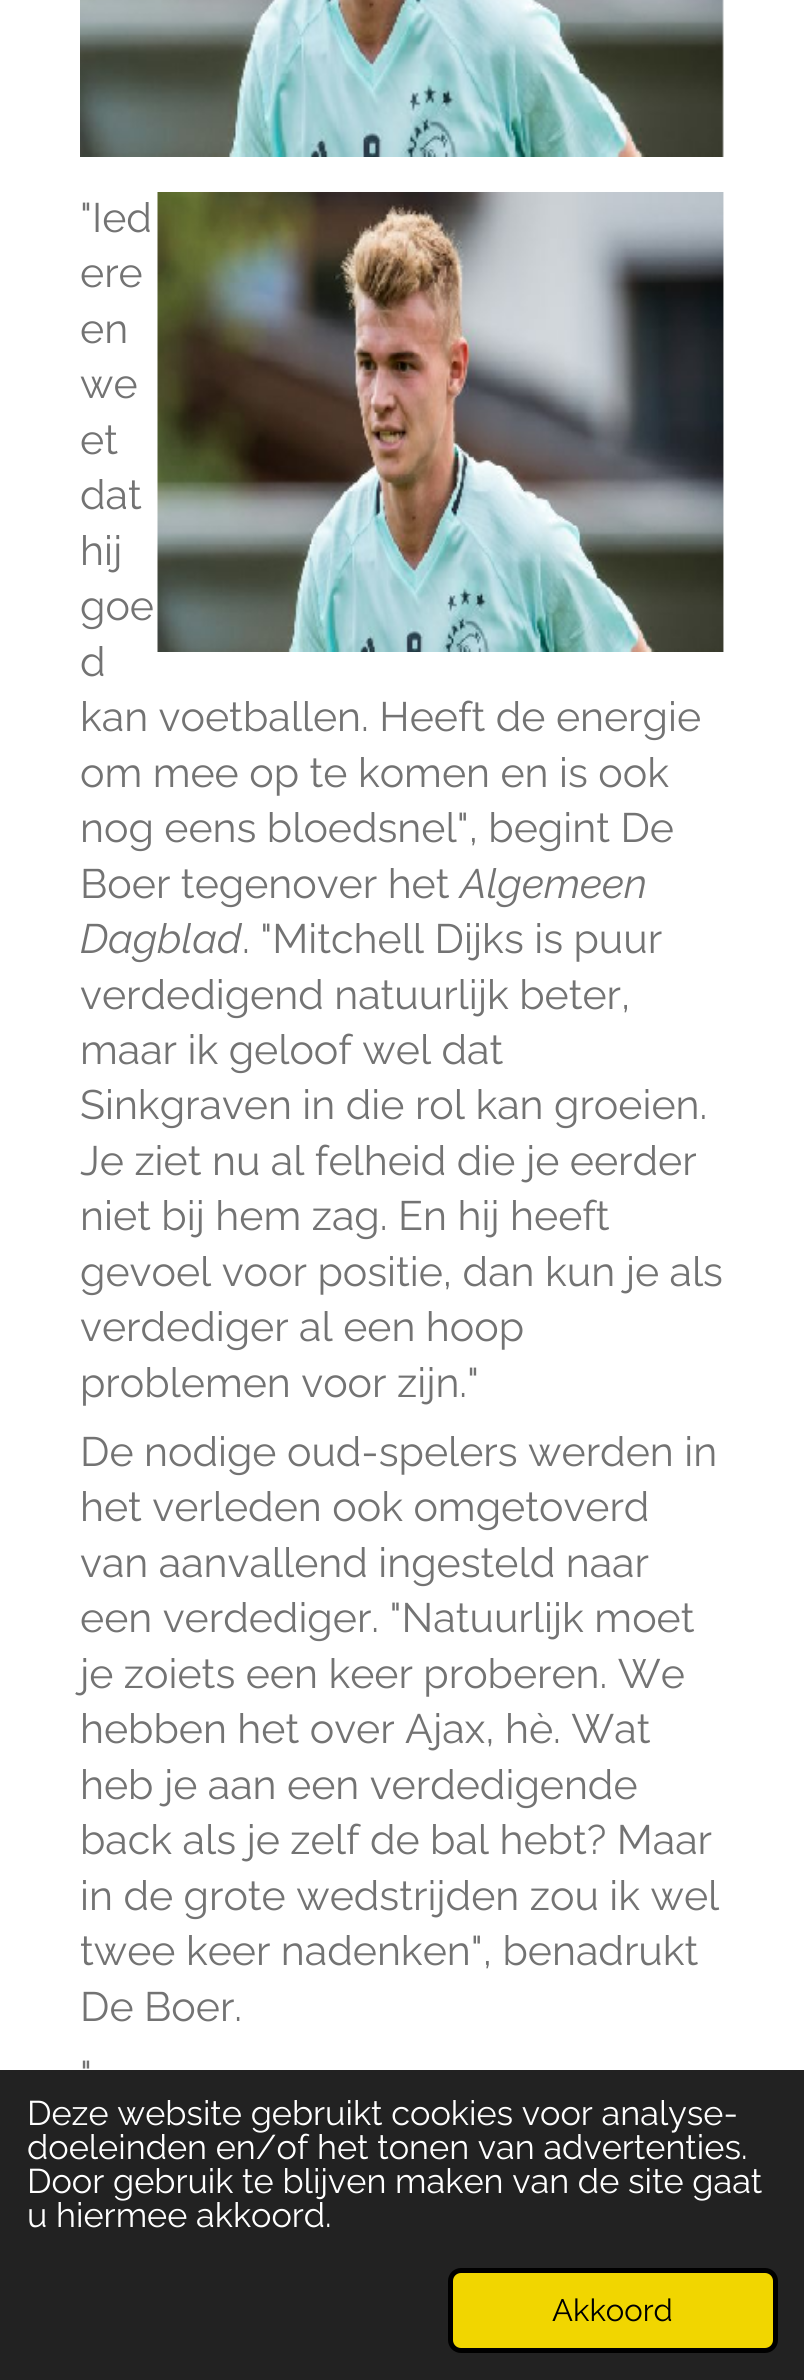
import math
import cairo


def round_path(ctx, x, y, w, h, r):
	ctx.new_sub_path()
	for i, (u, v) in enumerate([(x + w - r, y + h - r), (x + r, y + h - r), (x + r, y + r), (x + w - r, y + r)]):
		ctx.arc(u, v, r, i * math.pi / 2, (i + 1) * math.pi / 2)
	ctx.close_path()

def paste(ctx, path, x, y, w, h):
	ctx.save()
	ctx.set_source_surface(cairo.ImageSurface.create_from_png(path), x, y)
	ctx.rectangle(x, y, w, h)
	ctx.fill()
	ctx.restore()

def draw(ctx):
	ctx.set_source_rgb(1, 1, 1)
	ctx.paint()
	paste(ctx, 'media/1.png', 80, 0, 644, 157)
	ctx.select_font_face('Raleway')
	ctx.set_font_size(41.1)
	ctx.set_source_rgb(0.451, 0.451, 0.451)
	ctx.move_to(80, 232)
	ctx.show_text('"Ied')
	paste(ctx, 'media/2.png', 157, 192, 567, 460)
	for x, y, s in [
		(80, 287, 'ere'),
		(80, 343, 'en'),
		(80, 398, 'we'),
		(80, 454, 'et'),
		(80, 509, 'dat'),
		(80, 565, 'hij'),
		(80, 620, 'goe'),
		(80, 676, 'd'),
		(80, 731, 'kan voetballen. Heeft de energie'),
		(80, 787, 'om mee op te komen en is ook'),
		(80, 842, 'nog eens bloedsnel", begint De'),
		(80, 898, 'Boer tegenover het'),
	]:
		ctx.move_to(x, y)
		ctx.show_text(s)
	ctx.select_font_face('Raleway', cairo.FONT_SLANT_ITALIC)
	ctx.move_to(460, 898)
	ctx.show_text('Algemeen')
	ctx.move_to(80, 953)
	ctx.show_text('Dagblad')
	ctx.select_font_face('Raleway')
	for x, y, s in [
		(242, 953, '. "Mitchell Dijks is puur'),
		(80, 1009, 'verdedigend natuurlijk beter,'),
		(80, 1064, 'maar ik geloof wel dat'),
		(80, 1119, 'Sinkgraven in die rol kan groeien.'),
		(80, 1175, 'Je ziet nu al felheid die je eerder'),
		(80, 1230, 'niet bij hem zag. En hij heeft'),
		(80, 1286, 'gevoel voor positie, dan kun je als'),
		(80, 1341, 'verdediger al een hoop'),
		(80, 1397, 'problemen voor zijn."'),
		(80, 1466, 'De nodige oud-spelers werden in'),
		(80, 1521, 'het verleden ook omgetoverd'),
		(80, 1577, 'van aanvallend ingesteld naar'),
		(80, 1632, 'een verdediger. "Natuurlijk moet'),
		(80, 1688, 'je zoiets een keer proberen. We'),
		(80, 1743, 'hebben het over Ajax, hè. Wat'),
		(80, 1799, 'heb je aan een verdedigende'),
		(80, 1854, 'back als je zelf de bal hebt? Maar'),
		(80, 1910, 'in de grote wedstrijden zou ik wel'),
		(80, 1965, 'twee keer nadenken", benadrukt'),
		(80, 2021, 'De Boer.'),
		(80, 2090, '"'),
	]:
		ctx.move_to(x, y)
		ctx.show_text(s)
	ctx.set_source_rgb(0.133, 0.133, 0.133)
	ctx.rectangle(0, 2070, 804, 310)
	ctx.fill()
	ctx.set_font_size(34.25)
	ctx.set_source_rgb(1, 1, 1)
	for x, y, s in [
		(27, 2125, 'Deze website gebruikt cookies voor analyse-'),
		(27, 2159, 'doeleinden en/of het tonen van advertenties.'),
		(27, 2193, 'Door gebruik te blijven maken van de site gaat'),
		(27, 2227, 'u hiermee akkoord.'),
	]:
		ctx.move_to(x, y)
		ctx.show_text(s)
	ctx.set_source_rgb(0.945, 0.839, 0)
	round_path(ctx, 450.5, 2270.5, 325, 80, 10.5)
	ctx.fill_preserve()
	ctx.set_source_rgb(0, 0, 0)
	ctx.set_line_width(5)
	ctx.stroke()
	ctx.set_font_size(31)
	ctx.move_to(552, 2321)
	ctx.show_text('Akkoord')


surface = cairo.ImageSurface(cairo.FORMAT_RGB24, 804, 2380)
ctx = cairo.Context(surface)
options = cairo.FontOptions()
options.set_hint_metrics(cairo.HINT_METRICS_OFF)
options.set_hint_style(cairo.HINT_STYLE_NONE)
ctx.set_font_options(options)
ctx.set_miter_limit(4)
draw(ctx)
surface.write_to_png('image.png')
